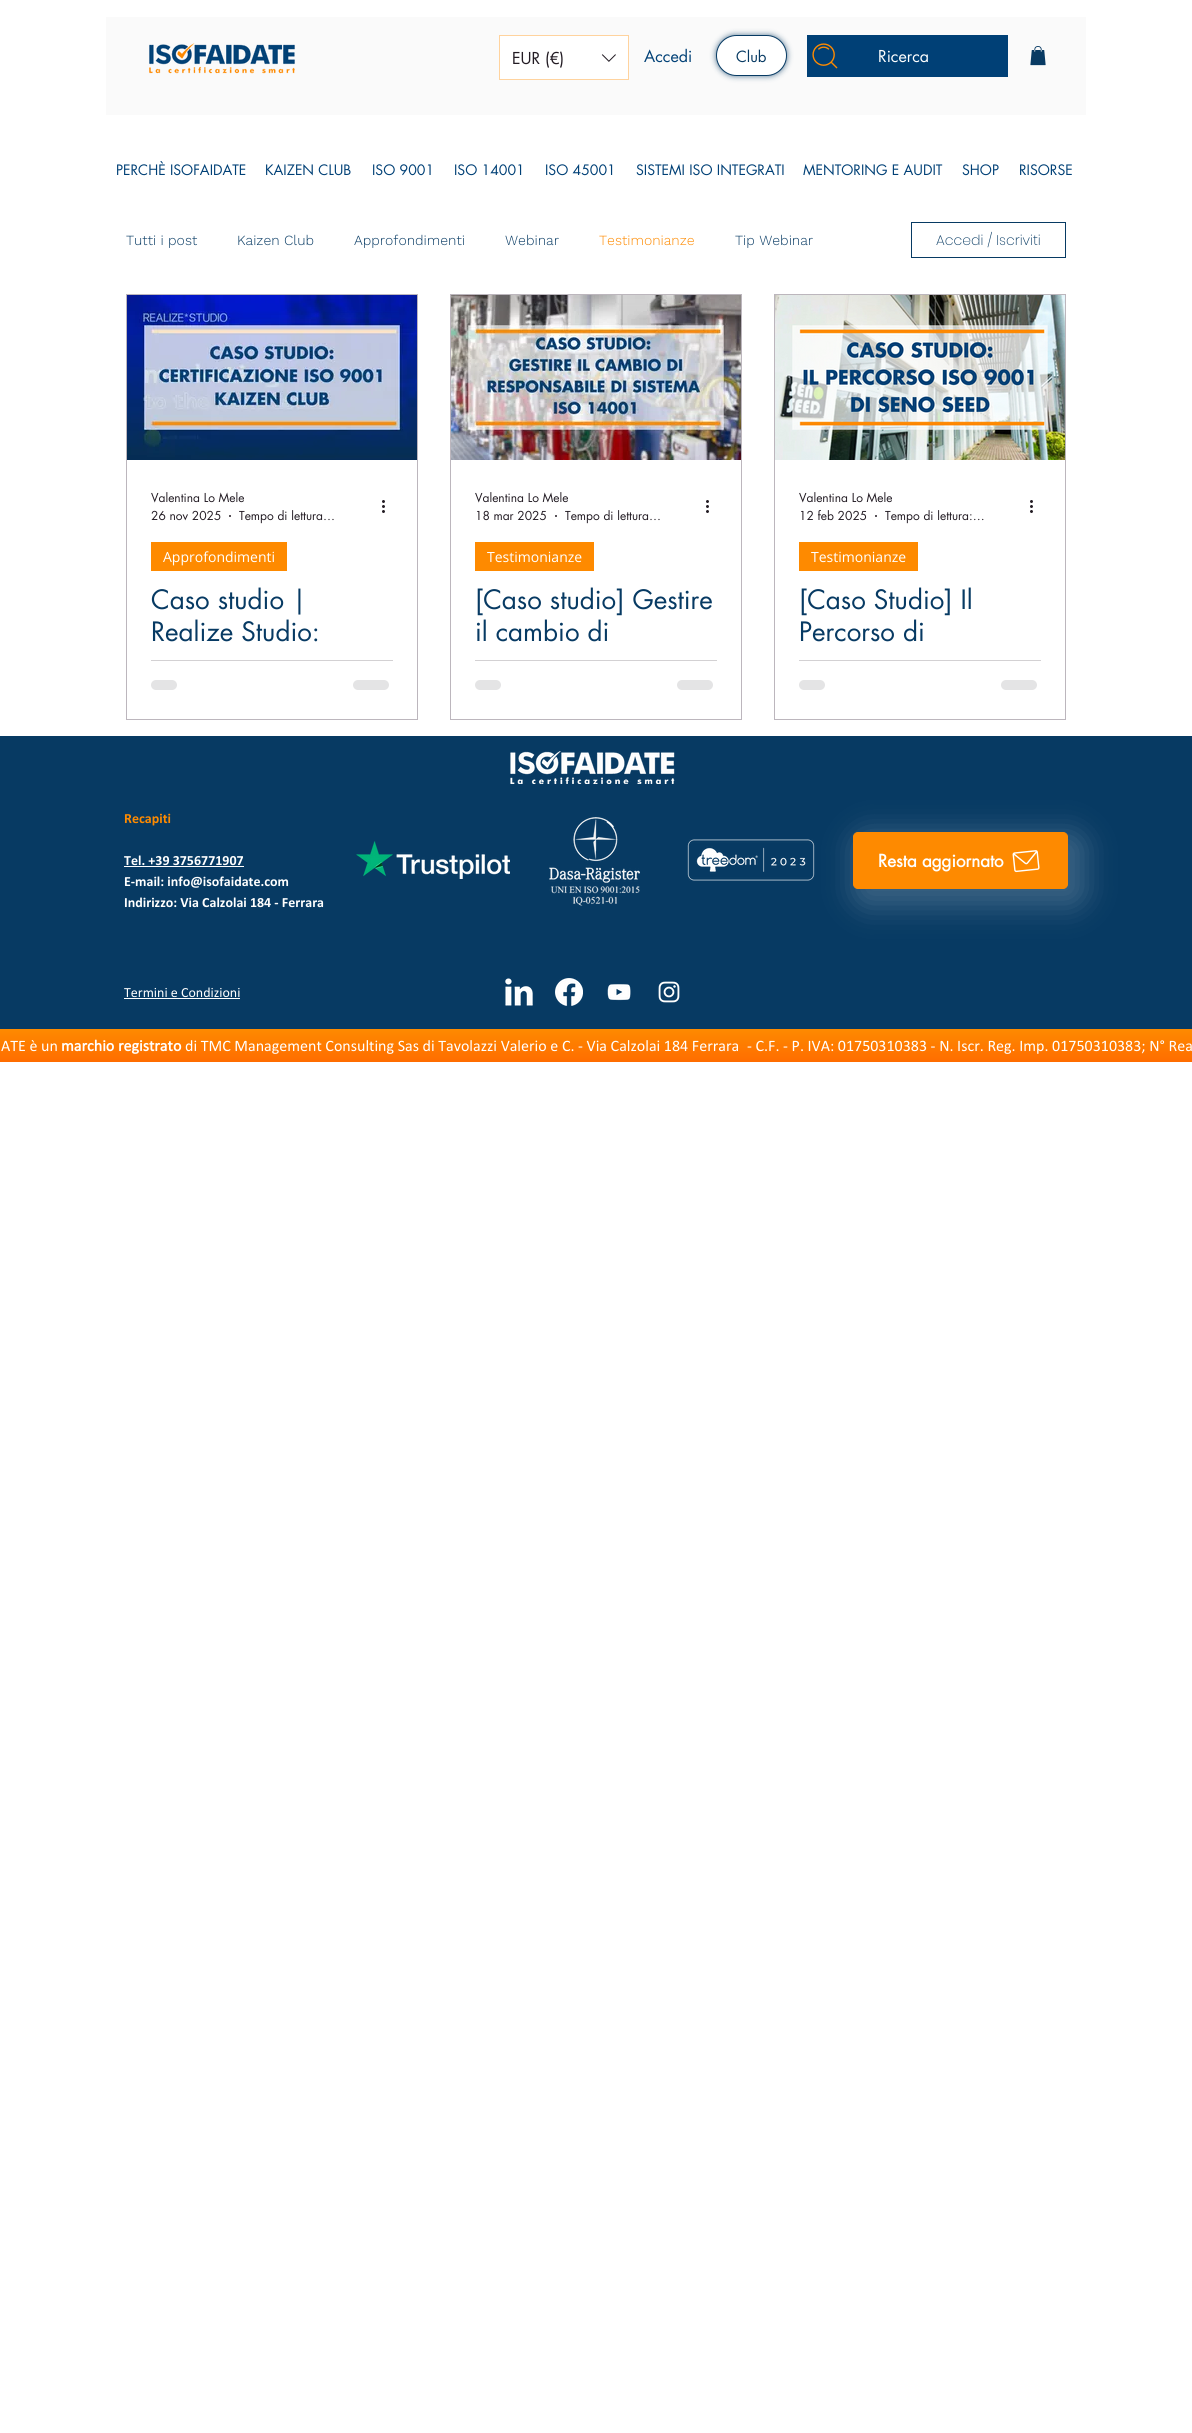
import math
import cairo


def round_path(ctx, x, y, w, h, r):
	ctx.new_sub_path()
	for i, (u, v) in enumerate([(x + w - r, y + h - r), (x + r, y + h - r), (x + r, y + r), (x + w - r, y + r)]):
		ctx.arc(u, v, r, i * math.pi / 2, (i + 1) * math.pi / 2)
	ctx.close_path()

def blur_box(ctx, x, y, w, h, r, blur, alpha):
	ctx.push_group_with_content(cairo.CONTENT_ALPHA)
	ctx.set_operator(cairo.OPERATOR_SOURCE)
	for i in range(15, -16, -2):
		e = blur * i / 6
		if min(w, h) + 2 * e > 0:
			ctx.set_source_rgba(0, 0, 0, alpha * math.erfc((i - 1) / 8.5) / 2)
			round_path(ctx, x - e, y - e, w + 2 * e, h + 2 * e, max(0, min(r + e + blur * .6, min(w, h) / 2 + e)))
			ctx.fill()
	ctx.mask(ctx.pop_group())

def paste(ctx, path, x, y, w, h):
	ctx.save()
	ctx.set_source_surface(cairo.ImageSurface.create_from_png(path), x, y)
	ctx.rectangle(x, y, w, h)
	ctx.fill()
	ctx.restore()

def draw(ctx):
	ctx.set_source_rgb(1, 1, 1)
	ctx.paint()
	ctx.set_source_rgb(0.98, 0.98, 0.98)
	ctx.rectangle(106, 17, 980, 98)
	ctx.fill()
	paste(ctx, 'media/1.png', 149, 43, 146, 31)
	ctx.set_source_rgb(1, 1, 1)
	ctx.rectangle(499.5, 35.5, 129, 44)
	ctx.fill_preserve()
	ctx.set_source_rgb(1, 0.827, 0.62)
	ctx.set_line_width(1)
	ctx.stroke()
	ctx.select_font_face('futura')
	ctx.set_font_size(16)
	ctx.set_source_rgb(0.133, 0.106, 0.137)
	ctx.move_to(512, 64)
	ctx.show_text('EUR (€)')
	paste(ctx, 'media/2.png', 601, 54, 15, 8)
	ctx.set_source_rgb(0, 0.251, 0.463)
	ctx.move_to(644, 62)
	ctx.show_text('Accedi')
	ctx.set_source_rgb(0.031, 0.227, 0.388)
	blur_box(ctx, 716, 35, 71, 41, 20.5, 3, 0.7)
	ctx.set_source_rgb(1, 1, 1)
	round_path(ctx, 716.5, 35.5, 70, 40, 20)
	ctx.fill_preserve()
	ctx.set_source_rgb(0.031, 0.227, 0.388)
	ctx.stroke()
	ctx.set_font_size(15)
	ctx.move_to(736, 62)
	ctx.show_text('Club')
	ctx.set_source_rgb(0, 0.251, 0.463)
	ctx.rectangle(807, 35, 201, 42)
	ctx.fill()
	paste(ctx, 'media/3.png', 812, 43, 26, 26)
	ctx.set_font_size(16)
	ctx.set_source_rgb(1, 1, 1)
	ctx.move_to(878, 62)
	ctx.show_text('Ricerca')
	paste(ctx, 'media/4.png', 1030, 46, 16, 20)
	ctx.set_font_size(14)
	ctx.set_source_rgb(0, 0.251, 0.463)
	for x, y, s in [
		(116, 175, 'PERCHÈ ISOFAIDATE'),
		(265, 175, 'KAIZEN CLUB'),
		(372, 175, 'ISO 9001'),
		(454, 175, 'ISO 14001'),
		(545, 175, 'ISO 45001'),
		(636, 175, 'SISTEMI ISO INTEGRATI'),
		(803, 175, 'MENTORING E AUDIT'),
		(962, 175, 'SHOP'),
		(1019, 175, 'RISORSE'),
	]:
		ctx.move_to(x, y)
		ctx.show_text(s)
	ctx.select_font_face('Work Sans Light')
	ctx.set_source_rgb(0.031, 0.227, 0.388)
	for x, y, s in [
		(126, 245, 'Tutti i post'),
		(237, 245, 'Kaizen Club'),
		(354, 245, 'Approfondimenti'),
		(505, 245, 'Webinar'),
	]:
		ctx.move_to(x, y)
		ctx.show_text(s)
	ctx.set_source_rgb(0.996, 0.541, 0)
	ctx.move_to(599, 245)
	ctx.show_text('Testimonianze')
	ctx.set_source_rgb(0.031, 0.227, 0.388)
	ctx.move_to(735, 245)
	ctx.show_text('Tip Webinar')
	ctx.rectangle(911.5, 222.5, 154, 35)
	ctx.stroke()
	ctx.select_font_face('Poppins ExtraLight')
	ctx.move_to(936, 245)
	ctx.show_text('Accedi / Iscriviti')
	ctx.rectangle(126.5, 294.5, 291, 425)
	ctx.set_source_rgb(0.737, 0.714, 0.741)
	ctx.stroke()
	paste(ctx, 'media/5.png', 127, 295, 290, 165)
	ctx.select_font_face('futura')
	ctx.set_font_size(12)
	ctx.set_source_rgb(0.133, 0.106, 0.137)
	ctx.move_to(151, 502)
	ctx.show_text('Valentina Lo Mele')
	ctx.move_to(151, 520)
	ctx.show_text('26 nov 2025')
	ctx.new_path()
	ctx.arc(230, 516, 1, 0, 2 * math.pi)
	ctx.fill()
	ctx.move_to(239, 520)
	ctx.show_text('Tempo di lettura…')
	paste(ctx, 'media/6.png', 382, 500, 3, 13)
	ctx.set_source_rgb(0.996, 0.541, 0)
	ctx.rectangle(151, 542, 136, 29)
	ctx.fill()
	ctx.select_font_face('Open Sans')
	ctx.set_font_size(14)
	ctx.set_source_rgb(1, 1, 1)
	ctx.move_to(163, 562)
	ctx.show_text('Approfondimenti')
	ctx.select_font_face('futura')
	ctx.set_font_size(26)
	ctx.set_source_rgb(0.031, 0.227, 0.388)
	ctx.move_to(151, 609)
	ctx.show_text('Caso studio |')
	ctx.move_to(151, 641)
	ctx.show_text('Realize Studio:')
	ctx.set_source_rgb(0.827, 0.82, 0.827)
	ctx.rectangle(151, 660, 242, 1)
	ctx.fill()
	ctx.set_source_rgb(0.894, 0.894, 0.898)
	round_path(ctx, 151, 680, 26, 10, 5)
	ctx.fill()
	round_path(ctx, 353, 680, 36, 10, 5)
	ctx.fill()
	ctx.rectangle(450.5, 294.5, 291, 425)
	ctx.set_source_rgb(0.737, 0.714, 0.741)
	ctx.stroke()
	paste(ctx, 'media/7.png', 451, 295, 290, 165)
	ctx.set_font_size(12)
	ctx.set_source_rgb(0.133, 0.106, 0.137)
	ctx.move_to(475, 502)
	ctx.show_text('Valentina Lo Mele')
	ctx.move_to(475, 520)
	ctx.show_text('18 mar 2025')
	ctx.new_path()
	ctx.arc(556, 516, 1, 0, 2 * math.pi)
	ctx.fill()
	ctx.move_to(565, 520)
	ctx.show_text('Tempo di lettura…')
	paste(ctx, 'media/6.png', 706, 500, 3, 13)
	ctx.set_source_rgb(0.996, 0.541, 0)
	ctx.rectangle(475, 542, 119, 29)
	ctx.fill()
	ctx.select_font_face('Open Sans')
	ctx.set_font_size(14)
	ctx.set_source_rgb(1, 1, 1)
	ctx.move_to(487, 562)
	ctx.show_text('Testimonianze')
	ctx.select_font_face('futura')
	ctx.set_font_size(26)
	ctx.set_source_rgb(0.031, 0.227, 0.388)
	ctx.move_to(475, 609)
	ctx.show_text('[Caso studio] Gestire')
	ctx.move_to(475, 641)
	ctx.show_text('il cambio di')
	ctx.set_source_rgb(0.827, 0.82, 0.827)
	ctx.rectangle(475, 660, 242, 1)
	ctx.fill()
	ctx.set_source_rgb(0.894, 0.894, 0.898)
	round_path(ctx, 475, 680, 26, 10, 5)
	ctx.fill()
	round_path(ctx, 677, 680, 36, 10, 5)
	ctx.fill()
	ctx.rectangle(774.5, 294.5, 291, 425)
	ctx.set_source_rgb(0.737, 0.714, 0.741)
	ctx.stroke()
	paste(ctx, 'media/8.png', 775, 295, 290, 165)
	ctx.set_font_size(12)
	ctx.set_source_rgb(0.133, 0.106, 0.137)
	ctx.move_to(799, 502)
	ctx.show_text('Valentina Lo Mele')
	ctx.move_to(799, 520)
	ctx.show_text('12 feb 2025')
	ctx.new_path()
	ctx.arc(876, 516, 1, 0, 2 * math.pi)
	ctx.fill()
	ctx.move_to(885, 520)
	ctx.show_text('Tempo di lettura:…')
	paste(ctx, 'media/6.png', 1030, 500, 3, 13)
	ctx.set_source_rgb(0.996, 0.541, 0)
	ctx.rectangle(799, 542, 119, 29)
	ctx.fill()
	ctx.select_font_face('Open Sans')
	ctx.set_font_size(14)
	ctx.set_source_rgb(1, 1, 1)
	ctx.move_to(811, 562)
	ctx.show_text('Testimonianze')
	ctx.select_font_face('futura')
	ctx.set_font_size(26)
	ctx.set_source_rgb(0.031, 0.227, 0.388)
	ctx.move_to(799, 609)
	ctx.show_text('[Caso Studio] Il')
	ctx.move_to(799, 641)
	ctx.show_text('Percorso di')
	ctx.set_source_rgb(0.827, 0.82, 0.827)
	ctx.rectangle(799, 660, 242, 1)
	ctx.fill()
	ctx.set_source_rgb(0.894, 0.894, 0.898)
	round_path(ctx, 799, 680, 26, 10, 5)
	ctx.fill()
	round_path(ctx, 1001, 680, 36, 10, 5)
	ctx.fill()
	ctx.set_source_rgb(0.031, 0.227, 0.388)
	ctx.rectangle(0, 736, 1192, 293)
	ctx.fill()
	paste(ctx, 'media/9.png', 510, 751, 165, 33)
	ctx.select_font_face('Calibri', cairo.FONT_SLANT_NORMAL, cairo.FONT_WEIGHT_BOLD)
	ctx.set_font_size(14)
	ctx.set_source_rgb(0.996, 0.541, 0)
	ctx.move_to(124, 823)
	ctx.show_text('Recapiti')
	ctx.set_source_rgb(1, 1, 1)
	ctx.move_to(124, 865)
	ctx.show_text('Tel. +39 3756771907')
	ctx.rectangle(124, 866, 120, 1)
	ctx.fill()
	ctx.move_to(124, 886)
	ctx.show_text('E-mail: info@isofaidate.com')
	ctx.move_to(124, 907)
	ctx.show_text('Indirizzo: Via Calzolai 184 - Ferrara')
	paste(ctx, 'media/10.png', 356, 841, 154, 38)
	paste(ctx, 'media/11.png', 549, 817, 91, 89)
	paste(ctx, 'media/12.png', 687, 839, 128, 42)
	ctx.set_source_rgb(1, 1, 1)
	blur_box(ctx, 852, 831, 235, 77, 15, 14.5, 0.2)
	ctx.set_source_rgb(0.996, 0.541, 0)
	round_path(ctx, 853.5, 832.5, 214, 56, 4.5)
	ctx.fill_preserve()
	ctx.stroke()
	ctx.select_font_face('futura', cairo.FONT_SLANT_NORMAL, cairo.FONT_WEIGHT_BOLD)
	ctx.set_font_size(17)
	ctx.set_source_rgb(1, 1, 1)
	ctx.move_to(878, 867)
	ctx.show_text('Resta aggiornato')
	paste(ctx, 'media/13.png', 1012, 850, 28, 23)
	ctx.select_font_face('Calibri')
	ctx.set_font_size(14)
	ctx.move_to(124, 997)
	ctx.show_text('Termini e Condizioni')
	ctx.rectangle(124, 998, 116, 1)
	ctx.fill()
	paste(ctx, 'media/14.png', 505, 978, 28, 28)
	paste(ctx, 'media/15.png', 555, 978, 28, 28)
	paste(ctx, 'media/16.png', 607, 984, 24, 17)
	paste(ctx, 'media/17.png', 658, 981, 22, 22)
	gradient = cairo.LinearGradient(596, 1029, 596, 1062)
	gradient.add_color_stop_rgba(0, 0.996, 0.541, 0, 1)
	gradient.add_color_stop_rgba(1, 1, 0.427, 0, 1)
	ctx.set_source(gradient)
	ctx.rectangle(0, 1029, 1192, 33)
	ctx.fill()
	ctx.set_font_size(16)
	ctx.set_source_rgb(1, 1, 1)
	ctx.move_to(1, 1051)
	ctx.show_text('ATE è un')
	ctx.select_font_face('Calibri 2', cairo.FONT_SLANT_NORMAL, cairo.FONT_WEIGHT_BOLD)
	ctx.move_to(61, 1051)
	ctx.show_text('marchio registrato')
	ctx.select_font_face('Calibri')
	ctx.move_to(185, 1051)
	ctx.show_text('di TMC Management Consulting Sas di Tavolazzi Valerio e C. - Via Calzolai 184 Ferrara')
	ctx.move_to(747, 1051)
	ctx.show_text('- C.F. - P. IVA: 01750310383 - N. Iscr. Reg. Imp. 01750310383; N° Rea')


surface = cairo.ImageSurface(cairo.FORMAT_RGB24, 1192, 2433)
ctx = cairo.Context(surface)
options = cairo.FontOptions()
options.set_hint_metrics(cairo.HINT_METRICS_OFF)
options.set_hint_style(cairo.HINT_STYLE_NONE)
ctx.set_font_options(options)
ctx.set_miter_limit(4)
draw(ctx)
surface.write_to_png('image.png')
